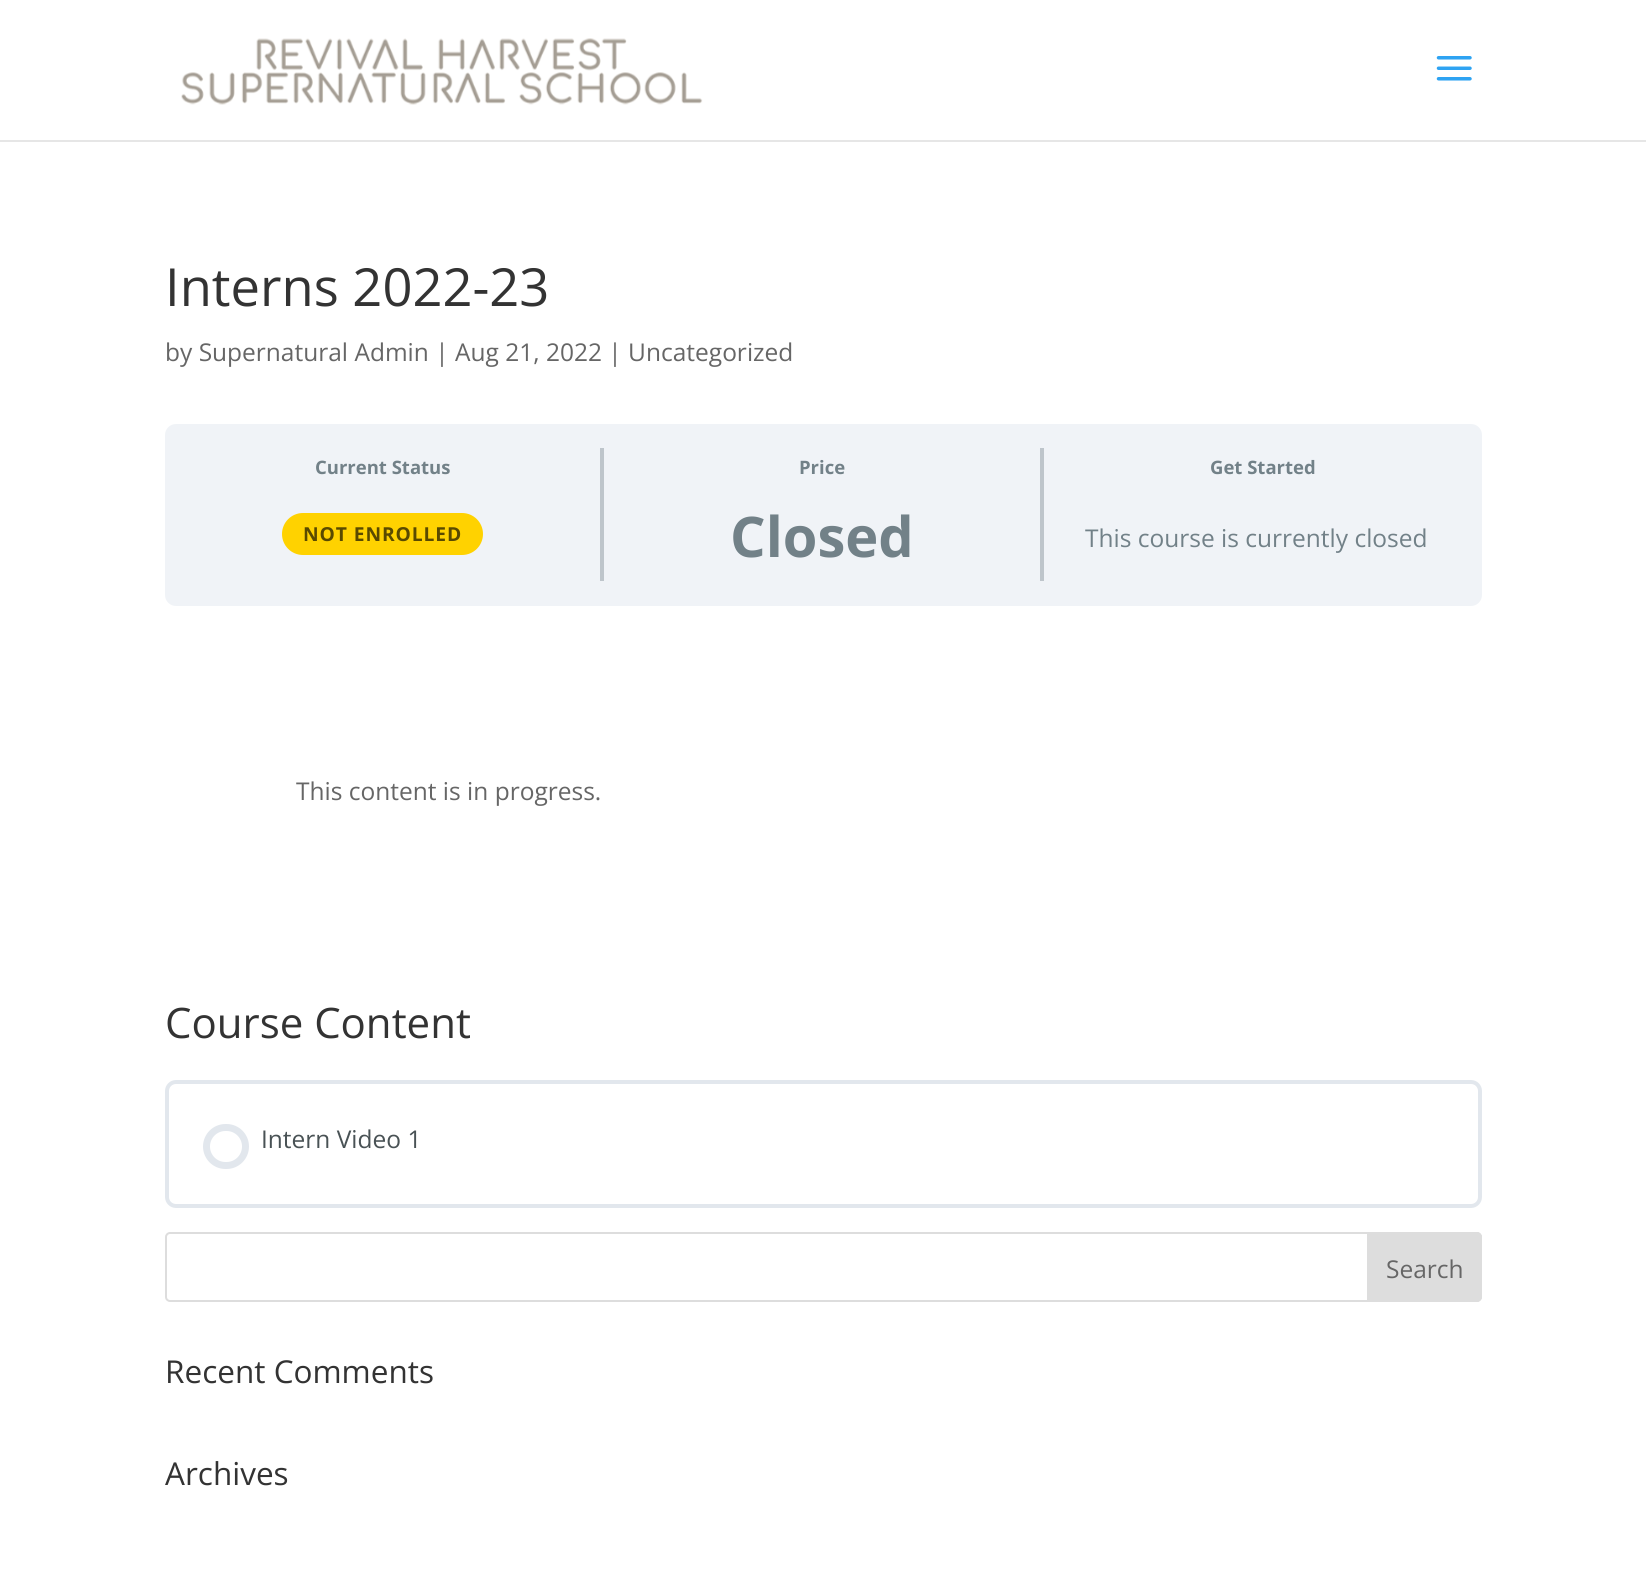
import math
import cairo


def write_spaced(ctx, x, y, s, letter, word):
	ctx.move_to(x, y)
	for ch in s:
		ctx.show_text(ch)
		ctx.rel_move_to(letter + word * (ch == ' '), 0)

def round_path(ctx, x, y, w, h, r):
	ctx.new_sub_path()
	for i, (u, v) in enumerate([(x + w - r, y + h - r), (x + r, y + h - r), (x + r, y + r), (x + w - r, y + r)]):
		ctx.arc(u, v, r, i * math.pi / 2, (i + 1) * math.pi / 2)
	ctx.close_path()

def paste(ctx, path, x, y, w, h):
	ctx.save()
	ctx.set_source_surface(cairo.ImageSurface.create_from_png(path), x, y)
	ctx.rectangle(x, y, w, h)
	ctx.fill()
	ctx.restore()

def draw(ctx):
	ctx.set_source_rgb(1, 1, 1)
	ctx.paint()
	ctx.set_source_rgb(0.902, 0.902, 0.902)
	ctx.new_path()
	ctx.move_to(0, 140)
	ctx.line_to(0, 142)
	ctx.line_to(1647, 142)
	ctx.line_to(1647, 2)
	ctx.line_to(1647, 140)
	ctx.close_path()
	ctx.fill()
	paste(ctx, 'media/1.png', 181, 38, 522, 67)
	paste(ctx, 'media/2.png', 1436, 56, 36, 25)
	ctx.select_font_face('Open Sans')
	ctx.set_font_size(52.5)
	ctx.set_source_rgb(0.2, 0.2, 0.2)
	ctx.move_to(165, 306)
	ctx.show_text('Interns 2022-23')
	ctx.set_font_size(24.5)
	ctx.set_source_rgb(0.4, 0.4, 0.4)
	ctx.move_to(165, 361)
	ctx.show_text('by Supernatural Admin | Aug 21, 2022 | Uncategorized')
	ctx.set_source_rgb(0.941, 0.953, 0.965)
	round_path(ctx, 165, 424, 1317, 182, 11)
	ctx.fill()
	ctx.set_source_rgb(0.745, 0.773, 0.796)
	ctx.rectangle(600, 448, 4, 133)
	ctx.fill()
	ctx.select_font_face('Open Sans', cairo.FONT_SLANT_NORMAL, cairo.FONT_WEIGHT_BOLD)
	ctx.set_font_size(18.5)
	ctx.set_source_rgb(0.447, 0.506, 0.533)
	ctx.move_to(315, 474)
	ctx.show_text('Current Status')
	ctx.set_source_rgb(1, 0.824, 0)
	round_path(ctx, 282, 513, 201, 42, 21)
	ctx.fill()
	ctx.set_font_size(19.25)
	ctx.set_source_rgb(0.349, 0.29, 0)
	write_spaced(ctx, 303, 541, 'NOT ENROLLED', 0.9, 0)
	ctx.set_source_rgb(0.745, 0.773, 0.796)
	ctx.rectangle(1040, 448, 4, 133)
	ctx.fill()
	ctx.set_font_size(18.5)
	ctx.set_source_rgb(0.447, 0.506, 0.533)
	ctx.move_to(799, 474)
	ctx.show_text('Price')
	ctx.set_font_size(56)
	ctx.move_to(730, 557)
	ctx.show_text('Closed')
	ctx.set_font_size(18.5)
	ctx.move_to(1210, 474)
	ctx.show_text('Get Started')
	ctx.select_font_face('Open Sans')
	ctx.set_font_size(24.5)
	ctx.move_to(1085, 547)
	ctx.show_text('This course is currently closed')
	ctx.set_source_rgb(0.4, 0.4, 0.4)
	ctx.move_to(296, 800)
	ctx.show_text('This content is in progress.')
	ctx.set_font_size(42)
	ctx.set_source_rgb(0.2, 0.2, 0.2)
	ctx.move_to(165, 1038)
	ctx.show_text('Course Content')
	round_path(ctx, 167, 1082, 1313, 124, 9)
	ctx.set_source_rgb(0.886, 0.906, 0.929)
	ctx.set_line_width(4)
	ctx.stroke()
	round_path(ctx, 206.5, 1127.5, 39, 38, 19)
	ctx.set_line_width(7)
	ctx.stroke()
	ctx.set_font_size(24.5)
	ctx.set_source_rgb(0.286, 0.322, 0.333)
	ctx.move_to(261, 1148)
	ctx.show_text('Intern Video 1')
	round_path(ctx, 166, 1233, 1315, 68, 4)
	ctx.set_source_rgb(0.867, 0.867, 0.867)
	ctx.set_line_width(2)
	ctx.stroke()
	ctx.new_path()
	ctx.move_to(1368, 1233)
	ctx.line_to(1477, 1233)
	ctx.curve_to(1479, 1233, 1481, 1235, 1481, 1237)
	ctx.line_to(1481, 1297)
	ctx.curve_to(1481, 1299, 1479, 1301, 1477, 1301)
	ctx.line_to(1368, 1301)
	ctx.close_path()
	ctx.fill_preserve()
	ctx.stroke()
	ctx.set_source_rgb(0.4, 0.4, 0.4)
	ctx.move_to(1386, 1278)
	ctx.show_text('Search')
	ctx.set_font_size(31.5)
	ctx.set_source_rgb(0.2, 0.2, 0.2)
	ctx.move_to(165, 1383)
	ctx.show_text('Recent Comments')
	ctx.move_to(165, 1485)
	ctx.show_text('Archives')


surface = cairo.ImageSurface(cairo.FORMAT_RGB24, 1646, 1573)
ctx = cairo.Context(surface)
options = cairo.FontOptions()
options.set_hint_metrics(cairo.HINT_METRICS_OFF)
options.set_hint_style(cairo.HINT_STYLE_NONE)
ctx.set_font_options(options)
ctx.set_miter_limit(4)
draw(ctx)
surface.write_to_png('image.png')
